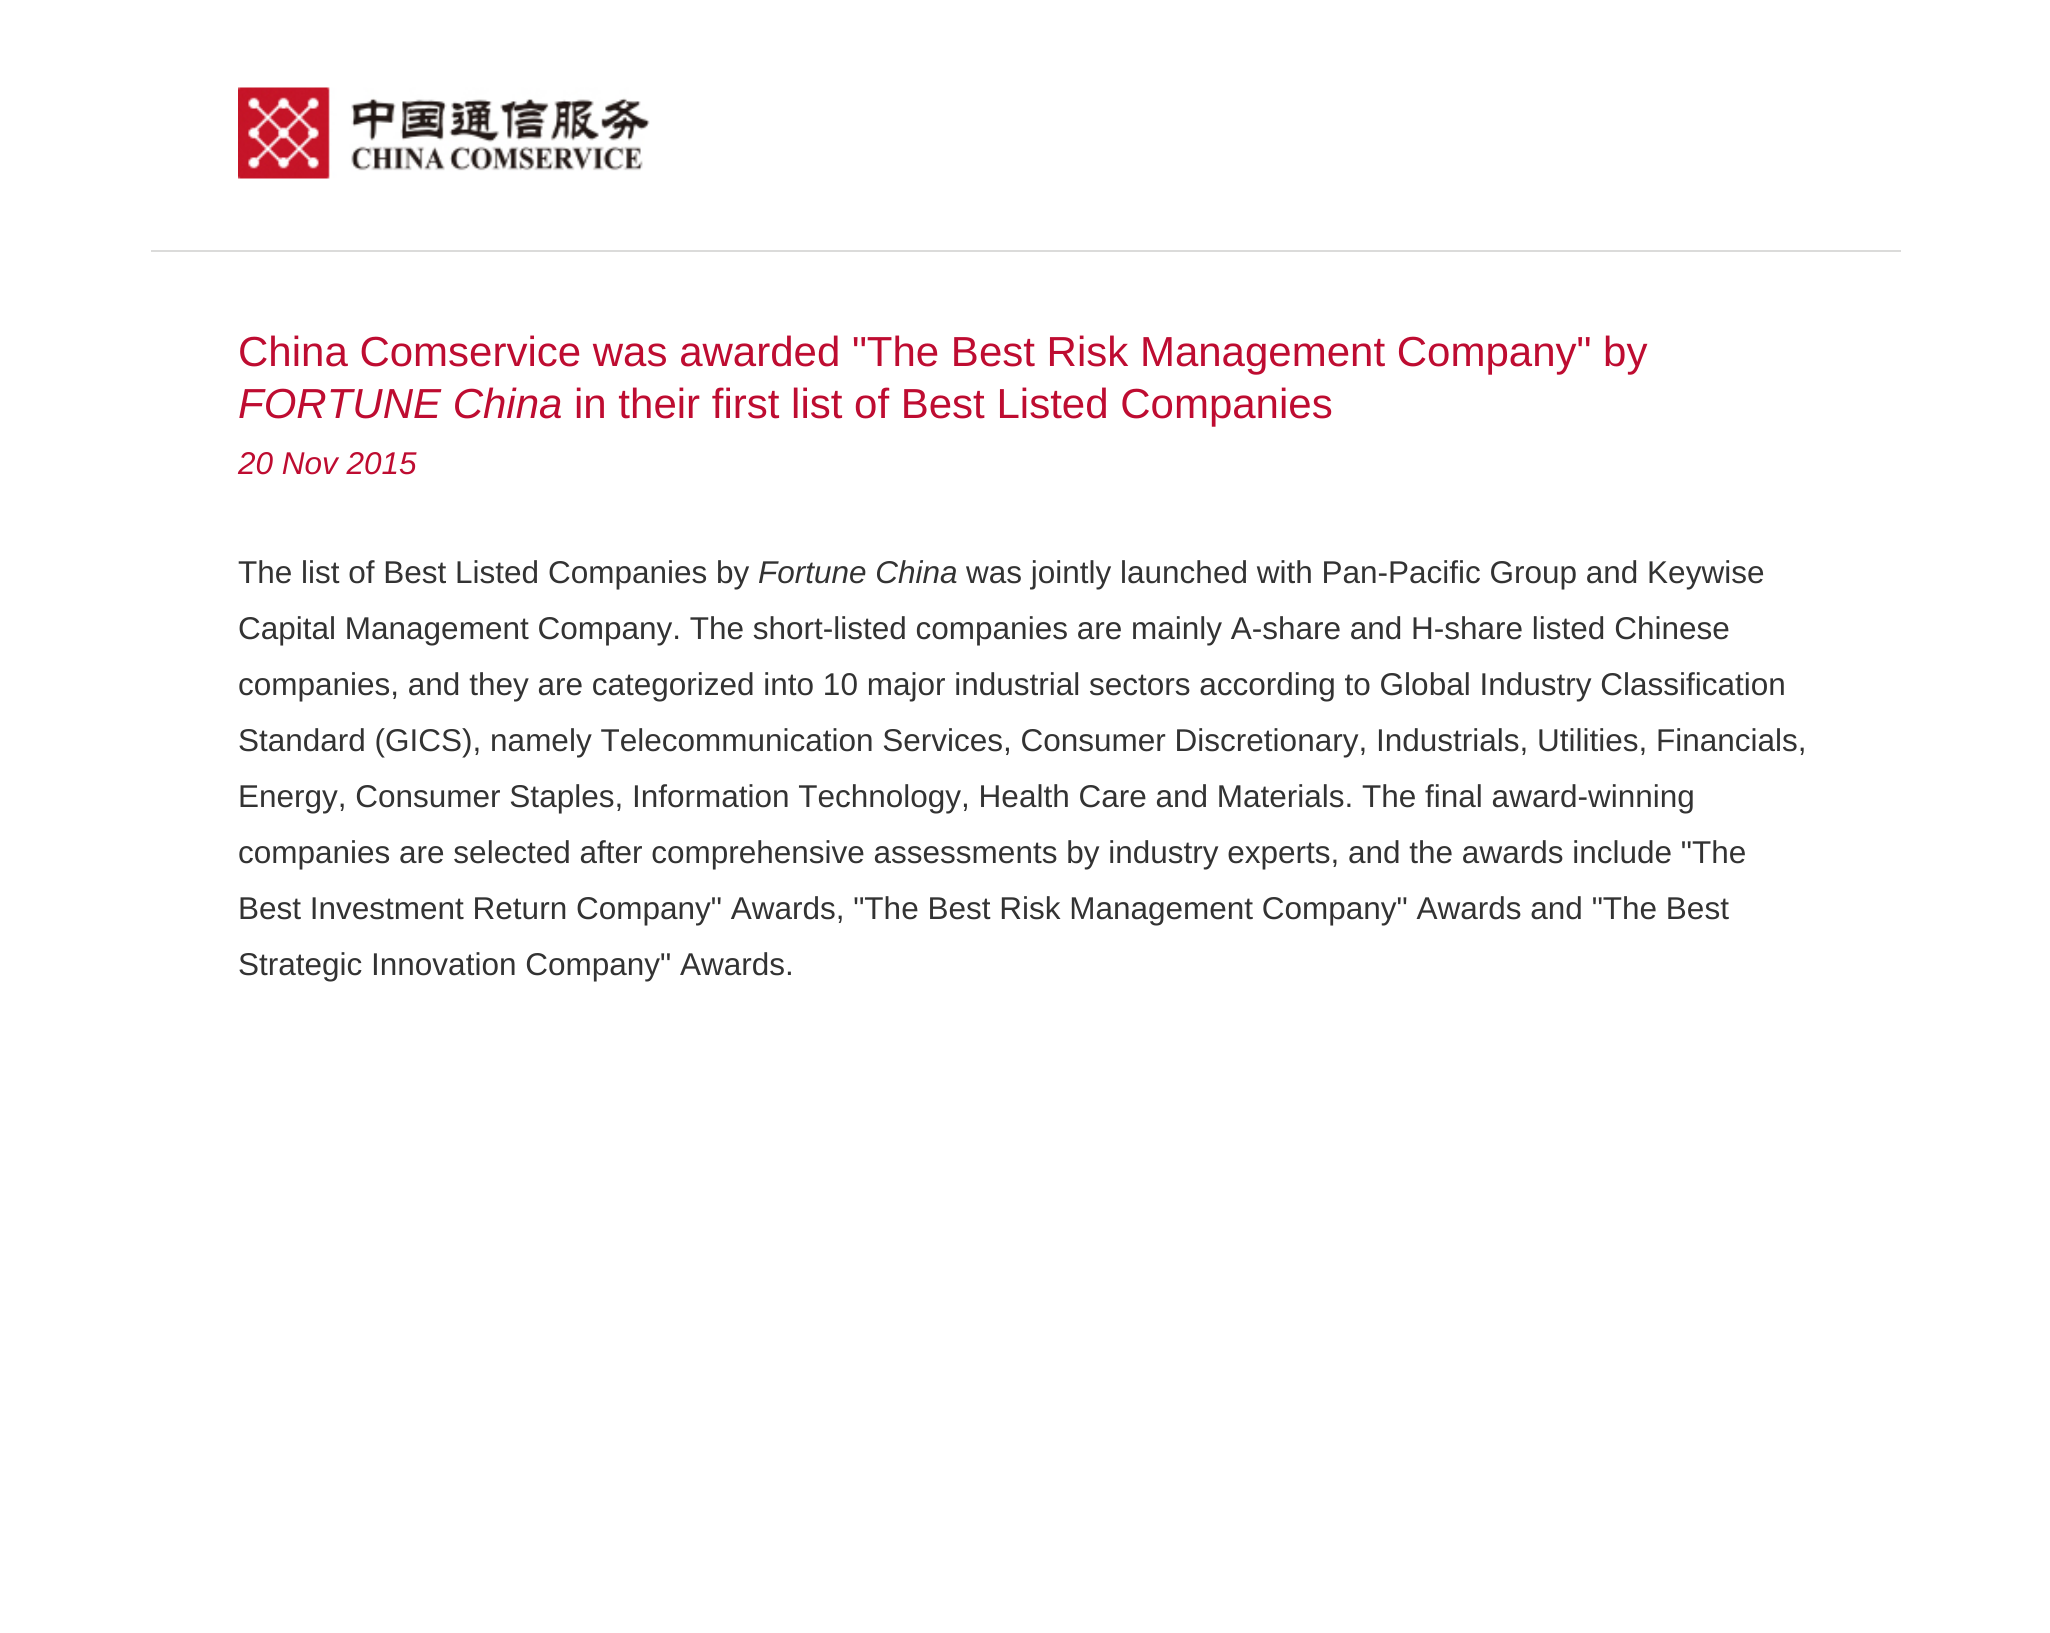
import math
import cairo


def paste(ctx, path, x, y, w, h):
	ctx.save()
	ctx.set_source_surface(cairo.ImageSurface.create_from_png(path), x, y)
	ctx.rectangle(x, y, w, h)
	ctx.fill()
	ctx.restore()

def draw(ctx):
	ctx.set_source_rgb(1, 1, 1)
	ctx.paint()
	ctx.set_source_rgb(0.859, 0.859, 0.855)
	ctx.rectangle(151, 250, 1750, 2)
	ctx.fill()
	paste(ctx, 'media/1.png', 238, 87, 412, 92)
	ctx.select_font_face('Liberation Sans')
	ctx.set_font_size(42)
	ctx.set_source_rgb(0.745, 0.047, 0.192)
	ctx.move_to(238, 366)
	ctx.show_text('China Comservice was awarded "The Best Risk Management Company" by')
	ctx.select_font_face('Liberation Sans', cairo.FONT_SLANT_ITALIC)
	ctx.move_to(238, 418)
	ctx.show_text('FORTUNE China')
	ctx.select_font_face('Liberation Sans')
	ctx.move_to(574, 418)
	ctx.show_text('in their first list of Best Listed Companies')
	ctx.select_font_face('Liberation Sans', cairo.FONT_SLANT_ITALIC)
	ctx.set_font_size(31.5)
	ctx.move_to(238, 474)
	ctx.show_text('20 Nov 2015')
	ctx.select_font_face('Liberation Sans')
	ctx.set_source_rgb(0.2, 0.2, 0.2)
	ctx.move_to(238, 583)
	ctx.show_text('The list of Best Listed Companies by')
	ctx.select_font_face('Liberation Sans', cairo.FONT_SLANT_ITALIC)
	ctx.move_to(758, 583)
	ctx.show_text('Fortune China')
	ctx.select_font_face('Liberation Sans')
	for x, y, s in [
		(966, 583, 'was jointly launched with Pan-Pacific Group and Keywise'),
		(238, 639, 'Capital Management Company. The short-listed companies are mainly A-share and H-share listed Chinese'),
		(238, 695, 'companies, and they are categorized into 10 major industrial sectors according to Global Industry Classification'),
		(238, 751, 'Standard (GICS), namely Telecommunication Services, Consumer Discretionary, Industrials, Utilities, Financials,'),
		(238, 807, 'Energy, Consumer Staples, Information Technology, Health Care and Materials. The final award-winning'),
		(238, 863, 'companies are selected after comprehensive assessments by industry experts, and the awards include "The'),
		(238, 919, 'Best Investment Return Company" Awards, "The Best Risk Management Company" Awards and "The Best'),
		(238, 975, 'Strategic Innovation Company" Awards.'),
	]:
		ctx.move_to(x, y)
		ctx.show_text(s)


surface = cairo.ImageSurface(cairo.FORMAT_RGB24, 2050, 1633)
ctx = cairo.Context(surface)
options = cairo.FontOptions()
options.set_hint_metrics(cairo.HINT_METRICS_OFF)
options.set_hint_style(cairo.HINT_STYLE_NONE)
ctx.set_font_options(options)
ctx.set_miter_limit(4)
draw(ctx)
surface.write_to_png('image.png')
